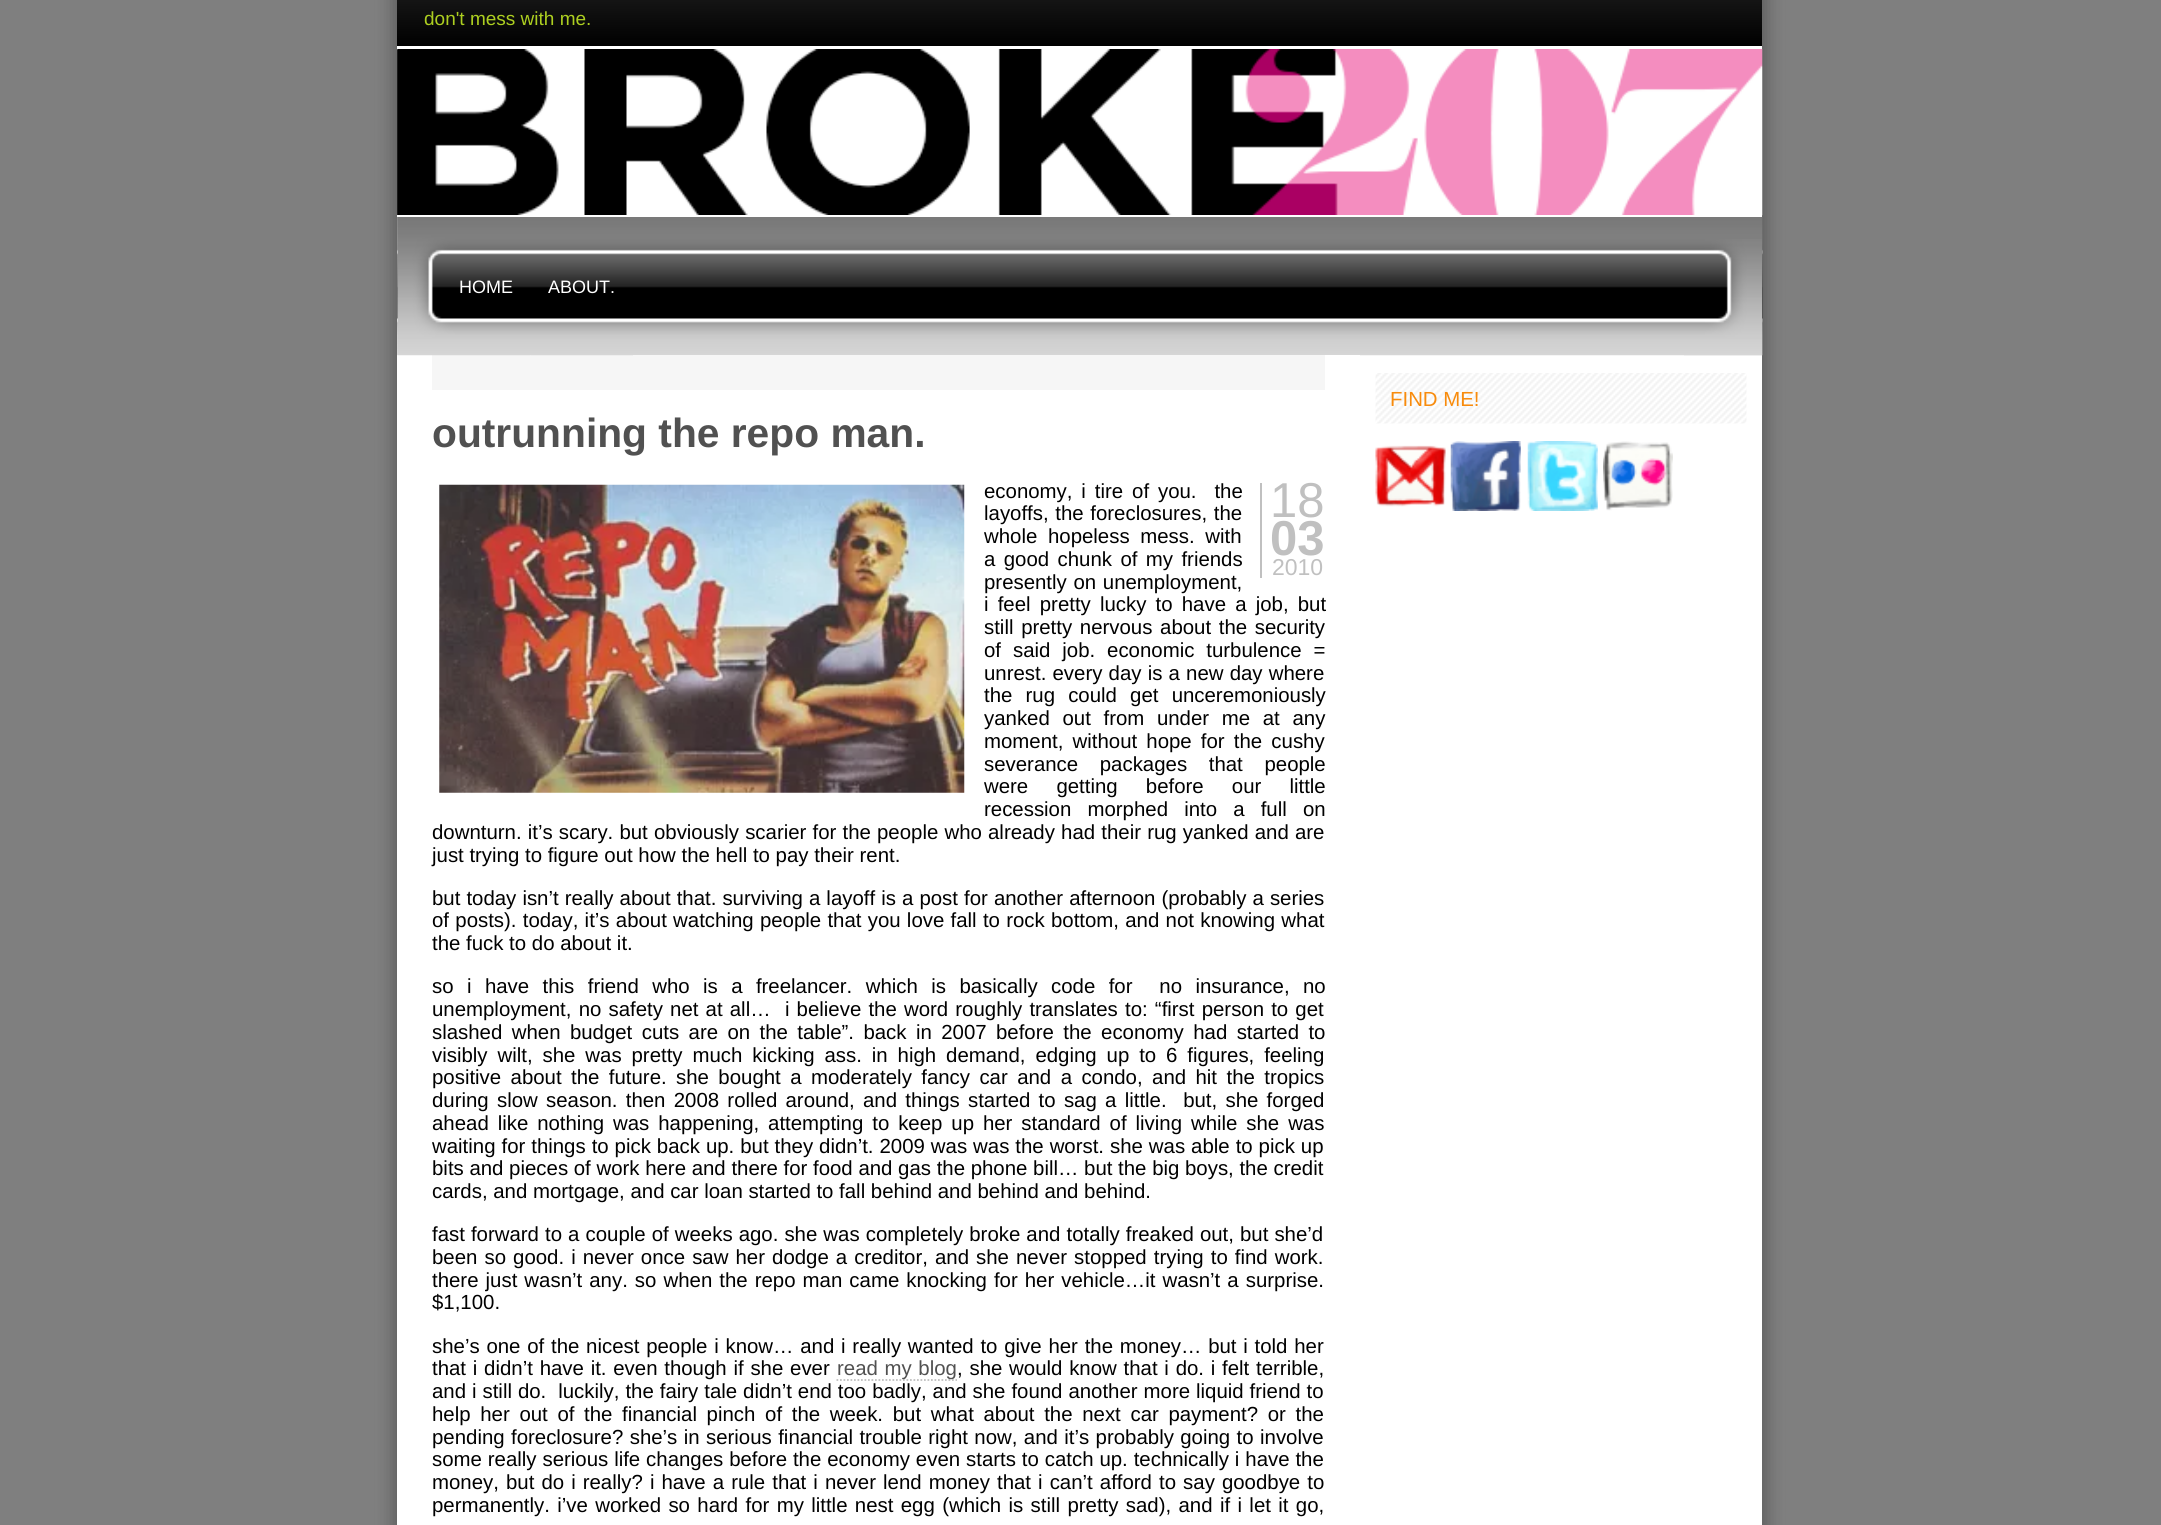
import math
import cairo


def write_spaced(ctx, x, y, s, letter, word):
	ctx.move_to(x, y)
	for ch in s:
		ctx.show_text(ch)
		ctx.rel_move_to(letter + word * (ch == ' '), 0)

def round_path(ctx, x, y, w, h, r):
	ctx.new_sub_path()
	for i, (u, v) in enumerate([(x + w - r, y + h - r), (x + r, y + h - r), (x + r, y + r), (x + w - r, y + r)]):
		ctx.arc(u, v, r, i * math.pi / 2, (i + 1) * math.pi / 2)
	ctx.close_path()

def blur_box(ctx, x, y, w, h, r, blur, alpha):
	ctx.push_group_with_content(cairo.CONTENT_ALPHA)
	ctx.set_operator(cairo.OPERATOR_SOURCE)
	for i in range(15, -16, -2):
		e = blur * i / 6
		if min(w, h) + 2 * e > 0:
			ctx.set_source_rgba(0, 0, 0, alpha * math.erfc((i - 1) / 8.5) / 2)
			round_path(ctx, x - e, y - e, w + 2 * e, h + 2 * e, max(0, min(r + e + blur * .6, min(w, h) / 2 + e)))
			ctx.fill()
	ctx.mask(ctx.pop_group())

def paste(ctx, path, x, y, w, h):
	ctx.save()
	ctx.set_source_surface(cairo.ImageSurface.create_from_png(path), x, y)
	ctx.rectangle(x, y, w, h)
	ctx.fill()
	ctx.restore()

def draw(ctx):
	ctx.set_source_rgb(0.498, 0.498, 0.498)
	ctx.paint()
	ctx.set_source_rgb(0.353, 0.353, 0.353)
	blur_box(ctx, 394, -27, 1372, 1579, 0, 9, 1)
	gradient = cairo.LinearGradient(1080, -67, 1080, 46)
	gradient.add_color_stop_rgba(0, 0.196, 0.196, 0.196, 1)
	gradient.add_color_stop_rgba(1, 0, 0, 0, 1)
	ctx.set_source(gradient)
	ctx.rectangle(397, 0, 1365, 46)
	ctx.fill()
	ctx.set_source_rgb(1, 1, 1)
	ctx.rectangle(397, 46, 1365, 4)
	ctx.fill()
	ctx.select_font_face('Liberation Sans')
	ctx.set_font_size(19)
	ctx.set_source_rgb(0.678, 0.812, 0.125)
	ctx.move_to(424, 25)
	ctx.show_text('don\'t mess with me.')
	paste(ctx, 'media/1.png', 397, 49, 1366, 167)
	ctx.set_source_rgb(1, 1, 1)
	ctx.rectangle(397, 215, 1365, 1310)
	ctx.fill()
	paste(ctx, 'media/2.png', 397, 217, 1366, 139)
	ctx.rectangle(397, 355, 963, 1)
	ctx.fill()
	ctx.set_source_rgb(0.961, 0.961, 0.961)
	ctx.rectangle(432, 355, 893, 35)
	ctx.fill()
	paste(ctx, 'media/3.png', 397, 217, 133, 139)
	ctx.set_font_size(18)
	ctx.set_source_rgb(1, 1, 1)
	ctx.move_to(459, 293)
	ctx.show_text('HOME')
	paste(ctx, 'media/4.png', 530, 355, 103, 1)
	ctx.move_to(548, 293)
	ctx.show_text('ABOUT.')
	paste(ctx, 'media/5.png', 1684, 239, 79, 117)
	paste(ctx, 'media/6.png', 1375, 373, 372, 51)
	ctx.set_font_size(20.4)
	ctx.set_source_rgb(0.969, 0.545, 0.047)
	ctx.move_to(1390, 406)
	ctx.show_text('FIND ME!')
	paste(ctx, 'media/7.png', 1375, 445, 71, 62)
	paste(ctx, 'media/8.png', 1450, 441, 71, 70)
	paste(ctx, 'media/9.png', 1527, 441, 71, 70)
	paste(ctx, 'media/10.png', 1603, 441, 70, 70)
	ctx.select_font_face('Liberation Sans', cairo.FONT_SLANT_NORMAL, cairo.FONT_WEIGHT_BOLD)
	ctx.set_font_size(40.75)
	ctx.set_source_rgb(0.318, 0.318, 0.318)
	ctx.move_to(432, 447)
	ctx.show_text('outrunning the repo man.')
	ctx.set_source_rgb(0.753, 0.753, 0.753)
	ctx.rectangle(1260, 483, 2, 95)
	ctx.fill()
	ctx.select_font_face('Liberation Sans')
	ctx.set_font_size(49)
	ctx.move_to(1270, 517)
	ctx.show_text('18')
	ctx.select_font_face('Liberation Sans', cairo.FONT_SLANT_NORMAL, cairo.FONT_WEIGHT_BOLD)
	ctx.move_to(1270, 555)
	ctx.show_text('03')
	ctx.select_font_face('Liberation Sans')
	ctx.set_font_size(23)
	ctx.move_to(1272, 575)
	ctx.show_text('2010')
	paste(ctx, 'media/11.png', 439, 484, 526, 309)
	ctx.set_font_size(20.4)
	ctx.set_source_rgb(0, 0, 0)
	write_spaced(ctx, 984, 498, 'economy, i tire of you.  the', 0, 3.25)
	write_spaced(ctx, 984, 520, 'layoffs, the foreclosures, the', 0, 1)
	write_spaced(ctx, 984, 543, 'whole hopeless mess. with', 0, 5)
	write_spaced(ctx, 984, 566, 'a good chunk of my friends', 0, 2.75)
	write_spaced(ctx, 984, 589, 'presently on unemployment,', 0, 1)
	write_spaced(ctx, 984, 611, 'i feel pretty lucky to have a job, but', 0, 3.5)
	write_spaced(ctx, 984, 634, 'still pretty nervous about the security', 0, 2)
	write_spaced(ctx, 984, 657, 'of said job. economic turbulence =', 0, 6.25)
	write_spaced(ctx, 984, 680, 'unrest. every day is a new day where', 0, 0.5)
	write_spaced(ctx, 984, 702, 'the rug could get unceremoniously', 0, 7.5)
	write_spaced(ctx, 984, 725, 'yanked out from under me at any', 0, 7)
	write_spaced(ctx, 984, 748, 'moment, without hope for the cushy', 0, 3.5)
	write_spaced(ctx, 984, 771, 'severance packages that people', 0, 16)
	write_spaced(ctx, 984, 793, 'were getting before our little', 0, 22.5)
	write_spaced(ctx, 984, 816, 'recession morphed into a full on', 0, 10.5)
	write_spaced(ctx, 432, 839, 'downturn. it’s scary. but obviously scarier for the people who already had their rug yanked and are', 0, 0.5)
	ctx.move_to(432, 862)
	ctx.show_text('just trying to figure out how the hell to pay their rent.')
	write_spaced(ctx, 432, 905, 'but today isn’t really about that. surviving a layoff is a post for another afternoon (probably a series', 0, 0.4)
	write_spaced(ctx, 432, 927, 'of posts). today, it’s about watching people that you love fall to rock bottom, and not knowing what', 0, 0.6)
	ctx.move_to(432, 950)
	ctx.show_text('the fuck to do about it.')
	write_spaced(ctx, 432, 993, 'so i have this friend who is a freelancer. which is basically code for  no insurance, no', 0, 7.75)
	write_spaced(ctx, 432, 1016, 'unemployment, no safety net at all…  i believe the word roughly translates to: “first person to get', 0, 1.5)
	write_spaced(ctx, 432, 1039, 'slashed when budget cuts are on the table”. back in 2007 before the economy had started to', 0, 3.75)
	write_spaced(ctx, 432, 1062, 'visibly wilt, she was pretty much kicking ass. in high demand, edging up to 6 figures, feeling', 0, 4.25)
	write_spaced(ctx, 432, 1084, 'positive about the future. she bought a moderately fancy car and a condo, and hit the tropics', 0, 3.75)
	write_spaced(ctx, 432, 1107, 'during slow season. then 2008 rolled around, and things started to sag a little.  but, she forged', 0, 2.6)
	write_spaced(ctx, 432, 1130, 'ahead like nothing was happening, attempting to keep up her standard of living while she was', 0, 3.25)
	write_spaced(ctx, 432, 1153, 'waiting for things to pick back up. but they didn’t. 2009 was was the worst. she was able to pick up', 0, 0.3)
	ctx.move_to(432, 1175)
	ctx.show_text('bits and pieces of work here and there for food and gas the phone bill… but the big boys, the credit')
	ctx.move_to(432, 1198)
	ctx.show_text('cards, and mortgage, and car loan started to fall behind and behind and behind.')
	write_spaced(ctx, 432, 1241, 'fast forward to a couple of weeks ago. she was completely broke and totally freaked out, but she’d', 0, 0.4)
	write_spaced(ctx, 432, 1264, 'been so good. i never once saw her dodge a creditor, and she never stopped trying to find work.', 0, 1.4)
	write_spaced(ctx, 432, 1287, 'there just wasn’t any. so when the repo man came knocking for her vehicle…it wasn’t a surprise.', 0, 1.4)
	ctx.move_to(432, 1309)
	ctx.show_text('$1,100.')
	write_spaced(ctx, 432, 1353, 'she’s one of the nicest people i know… and i really wanted to give her the money… but i told her', 0, 1.1)
	write_spaced(ctx, 432, 1375, 'that i didn’t have it. even though if she ever', 0, 1.1)
	ctx.new_path()
	ctx.move_to(836.5, 1380)
	ctx.line_to(957, 1380)
	ctx.set_source_rgb(0.753, 0.753, 0.753)
	ctx.set_line_width(1.8)
	ctx.set_dash([1.75, 1.75])
	ctx.stroke()
	ctx.set_source_rgb(0.318, 0.318, 0.318)
	write_spaced(ctx, 837, 1375, 'read my blog', 0, 1)
	ctx.set_source_rgb(0, 0, 0)
	write_spaced(ctx, 957, 1375, ', she would know that i do. i felt terrible,', 0, 1.1)
	write_spaced(ctx, 432, 1398, 'and i still do.  luckily, the fairy tale didn’t end too badly, and she found another more liquid friend to', 0, 0.3)
	write_spaced(ctx, 432, 1421, 'help her out of the financial pinch of the week. but what about the next car payment? or the', 0, 4)
	write_spaced(ctx, 432, 1444, 'pending foreclosure? she’s in serious financial trouble right now, and it’s probably going to involve', 0, 0.75)
	write_spaced(ctx, 432, 1466, 'some really serious life changes before the economy even starts to catch up. technically i have the', 0, 0.25)
	write_spaced(ctx, 432, 1489, 'money, but do i really? i have a rule that i never lend money that i can’t afford to say goodbye to', 0, 1.4)
	write_spaced(ctx, 432, 1512, 'permanently. i’ve worked so hard for my little nest egg (which is still pretty sad), and if i let it go,', 0, 1.7)


surface = cairo.ImageSurface(cairo.FORMAT_RGB24, 2161, 1525)
ctx = cairo.Context(surface)
options = cairo.FontOptions()
options.set_hint_metrics(cairo.HINT_METRICS_OFF)
options.set_hint_style(cairo.HINT_STYLE_NONE)
ctx.set_font_options(options)
ctx.set_miter_limit(4)
draw(ctx)
surface.write_to_png('image.png')
